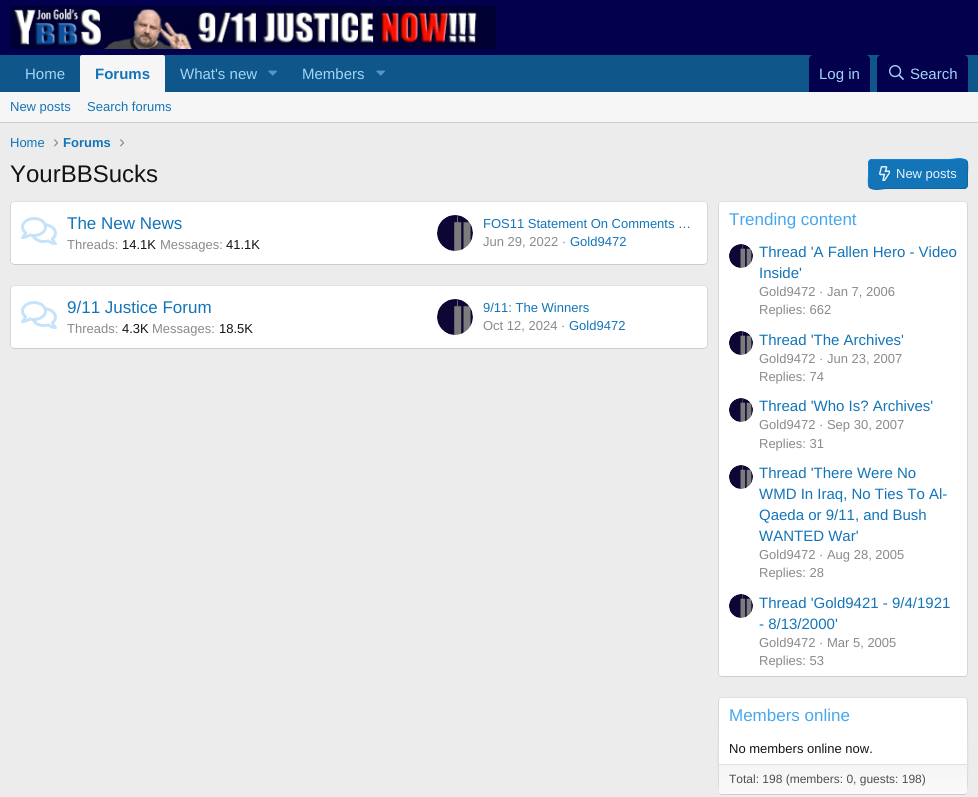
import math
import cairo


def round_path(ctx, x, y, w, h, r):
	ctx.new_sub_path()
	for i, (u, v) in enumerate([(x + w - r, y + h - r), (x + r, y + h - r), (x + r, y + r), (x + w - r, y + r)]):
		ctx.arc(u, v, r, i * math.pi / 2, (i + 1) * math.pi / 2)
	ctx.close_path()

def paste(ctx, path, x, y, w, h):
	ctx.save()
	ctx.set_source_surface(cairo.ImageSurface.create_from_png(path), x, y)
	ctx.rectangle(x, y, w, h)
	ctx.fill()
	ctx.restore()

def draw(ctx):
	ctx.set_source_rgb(0.922, 0.922, 0.922)
	ctx.paint()
	ctx.set_source_rgb(0.012, 0, 0.302)
	ctx.rectangle(0, 0, 978, 55)
	ctx.fill()
	paste(ctx, 'media/1.png', 10, 6, 486, 43)
	ctx.set_source_rgb(0.059, 0.341, 0.541)
	ctx.rectangle(0, 55, 978, 37)
	ctx.fill()
	ctx.select_font_face('Liberation Sans')
	ctx.set_font_size(15)
	ctx.set_source_rgb(0.639, 0.831, 0.961)
	ctx.move_to(25, 79)
	ctx.show_text('Home')
	ctx.set_source_rgb(0.961, 0.961, 0.961)
	ctx.new_path()
	ctx.move_to(82, 55)
	ctx.line_to(163, 55)
	ctx.curve_to(164, 55, 165, 56, 165, 57)
	ctx.line_to(165, 92)
	ctx.line_to(80, 92)
	ctx.line_to(80, 57)
	ctx.curve_to(80, 56, 81, 55, 82, 55)
	ctx.close_path()
	ctx.fill()
	ctx.select_font_face('Liberation Sans', cairo.FONT_SLANT_NORMAL, cairo.FONT_WEIGHT_BOLD)
	ctx.set_source_rgb(0.078, 0.455, 0.722)
	ctx.move_to(95, 79)
	ctx.show_text('Forums')
	ctx.select_font_face('Liberation Sans')
	ctx.set_source_rgb(0.639, 0.831, 0.961)
	ctx.move_to(180, 79)
	ctx.show_text('What\'s new')
	paste(ctx, 'media/2.png', 268, 70, 9, 6)
	ctx.move_to(302, 79)
	ctx.show_text('Members')
	paste(ctx, 'media/2.png', 376, 70, 9, 6)
	ctx.set_source_rgb(0.012, 0, 0.302)
	ctx.new_path()
	ctx.move_to(813, 55)
	ctx.line_to(866, 55)
	ctx.curve_to(868, 55, 870, 57, 870, 59)
	ctx.line_to(870, 92)
	ctx.line_to(809, 92)
	ctx.line_to(809, 59)
	ctx.curve_to(809, 57, 811, 55, 813, 55)
	ctx.close_path()
	ctx.fill()
	ctx.set_source_rgb(0.639, 0.831, 0.961)
	ctx.move_to(819, 79)
	ctx.show_text('Log in')
	ctx.set_source_rgb(0.012, 0, 0.302)
	ctx.new_path()
	ctx.move_to(881, 55)
	ctx.line_to(964, 55)
	ctx.curve_to(966, 55, 968, 57, 968, 59)
	ctx.line_to(968, 92)
	ctx.line_to(877, 92)
	ctx.line_to(877, 59)
	ctx.curve_to(877, 57, 879, 55, 881, 55)
	ctx.close_path()
	ctx.fill()
	paste(ctx, 'media/3.png', 889, 65, 15, 15)
	ctx.set_source_rgb(0.639, 0.831, 0.961)
	ctx.move_to(910, 79)
	ctx.show_text('Search')
	ctx.set_source_rgb(0.961, 0.961, 0.961)
	ctx.rectangle(0, 92, 978, 30)
	ctx.fill()
	ctx.set_source_rgb(0.8, 0.8, 0.8)
	ctx.rectangle(0, 122, 978, 1)
	ctx.fill()
	ctx.set_font_size(13)
	ctx.set_source_rgb(0.078, 0.455, 0.722)
	for x, y, s in [
		(10, 111, 'New posts'),
		(87, 111, 'Search forums'),
		(10, 147, 'Home'),
	]:
		ctx.move_to(x, y)
		ctx.show_text(s)
	paste(ctx, 'media/4.png', 54, 139, 4, 8)
	ctx.select_font_face('Liberation Sans', cairo.FONT_SLANT_NORMAL, cairo.FONT_WEIGHT_BOLD)
	ctx.move_to(63, 147)
	ctx.show_text('Forums')
	paste(ctx, 'media/4.png', 120, 139, 4, 8)
	ctx.select_font_face('Liberation Sans')
	ctx.set_font_size(24)
	ctx.set_source_rgb(0.078, 0.078, 0.078)
	ctx.move_to(10, 182)
	ctx.show_text('YourBBSucks')
	ctx.set_source_rgb(0.078, 0.455, 0.722)
	round_path(ctx, 868, 159, 100, 30, 4)
	ctx.fill()
	ctx.new_path()
	ctx.move_to(966.5, 160.5)
	ctx.curve_to(968.5, 162.5, 967.5, 171, 967.5, 174)
	ctx.line_to(967.5, 181.5)
	ctx.curve_to(967.5, 184, 968, 188.5, 964, 188.5)
	ctx.line_to(887.5, 188.5)
	ctx.curve_to(881.5, 188.5, 875.5, 191, 870.5, 188)
	ctx.line_to(869.5, 187.5)
	ctx.set_source_rgb(0.071, 0.396, 0.631)
	ctx.set_line_width(1)
	ctx.stroke()
	ctx.new_path()
	ctx.move_to(869.5, 187.5)
	ctx.curve_to(867.5, 185.5, 868.5, 177, 868.5, 174)
	ctx.line_to(868.5, 166.5)
	ctx.curve_to(868.5, 164, 868, 159.5, 872, 159.5)
	ctx.line_to(948.5, 159.5)
	ctx.curve_to(954.5, 159.5, 960.5, 157, 965.5, 160)
	ctx.line_to(966.5, 160.5)
	ctx.set_source_rgb(0.09, 0.51, 0.812)
	ctx.stroke()
	paste(ctx, 'media/5.png', 879, 166, 11, 15)
	ctx.set_font_size(13)
	ctx.set_source_rgb(0.91, 0.957, 0.988)
	ctx.move_to(896, 178)
	ctx.show_text('New posts')
	ctx.set_source_rgb(1, 1, 1)
	round_path(ctx, 10, 201, 698, 64, 4)
	ctx.fill()
	ctx.new_path()
	ctx.move_to(11.5, 202.5)
	ctx.line_to(14, 201.5)
	ctx.line_to(704, 201.5)
	ctx.line_to(706.5, 202.5)
	ctx.set_source_rgb(0.878, 0.878, 0.878)
	ctx.stroke()
	ctx.new_path()
	ctx.move_to(706.5, 202.5)
	ctx.line_to(707.5, 204.5)
	ctx.line_to(707.5, 261.5)
	ctx.line_to(706.5, 263.5)
	ctx.set_source_rgb(0.839, 0.839, 0.839)
	ctx.stroke()
	ctx.new_path()
	ctx.move_to(706.5, 263.5)
	ctx.line_to(704, 264.5)
	ctx.line_to(14, 264.5)
	ctx.line_to(11.5, 263.5)
	ctx.set_source_rgb(0.8, 0.8, 0.8)
	ctx.stroke()
	ctx.new_path()
	ctx.move_to(11.5, 263.5)
	ctx.line_to(10.5, 261.5)
	ctx.line_to(10.5, 204.5)
	ctx.line_to(11.5, 202.5)
	ctx.set_source_rgb(0.839, 0.839, 0.839)
	ctx.stroke()
	paste(ctx, 'media/6.png', 21, 217, 36, 28)
	ctx.set_font_size(17)
	ctx.set_source_rgb(0.078, 0.455, 0.722)
	ctx.move_to(67, 229)
	ctx.show_text('The New News')
	ctx.set_font_size(13)
	ctx.set_source_rgb(0.541, 0.541, 0.541)
	ctx.move_to(67, 249)
	ctx.show_text('Threads:')
	ctx.set_source_rgb(0.078, 0.078, 0.078)
	ctx.move_to(122, 249)
	ctx.show_text('14.1K')
	ctx.set_source_rgb(0.541, 0.541, 0.541)
	ctx.move_to(160, 249)
	ctx.show_text('Messages:')
	ctx.set_source_rgb(0.078, 0.078, 0.078)
	ctx.move_to(226, 249)
	ctx.show_text('41.1K')
	paste(ctx, 'media/7.png', 437, 215, 36, 36)
	ctx.set_source_rgb(0.078, 0.455, 0.722)
	ctx.move_to(483, 228)
	ctx.show_text('FOS11 Statement On Comments …')
	ctx.set_source_rgb(0.541, 0.541, 0.541)
	ctx.move_to(483, 246)
	ctx.show_text('Jun 29, 2022 ·')
	ctx.set_source_rgb(0.078, 0.455, 0.722)
	ctx.move_to(570, 246)
	ctx.show_text('Gold9472')
	ctx.set_source_rgb(1, 1, 1)
	round_path(ctx, 10, 285, 698, 64, 4)
	ctx.fill()
	ctx.new_path()
	ctx.move_to(11.5, 286.5)
	ctx.line_to(14, 285.5)
	ctx.line_to(704, 285.5)
	ctx.line_to(706.5, 286.5)
	ctx.set_source_rgb(0.878, 0.878, 0.878)
	ctx.stroke()
	ctx.new_path()
	ctx.move_to(706.5, 286.5)
	ctx.line_to(707.5, 288.5)
	ctx.line_to(707.5, 345.5)
	ctx.line_to(706.5, 347.5)
	ctx.set_source_rgb(0.839, 0.839, 0.839)
	ctx.stroke()
	ctx.new_path()
	ctx.move_to(706.5, 347.5)
	ctx.line_to(704, 348.5)
	ctx.line_to(14, 348.5)
	ctx.line_to(11.5, 347.5)
	ctx.set_source_rgb(0.8, 0.8, 0.8)
	ctx.stroke()
	ctx.new_path()
	ctx.move_to(11.5, 347.5)
	ctx.line_to(10.5, 345.5)
	ctx.line_to(10.5, 288.5)
	ctx.line_to(11.5, 286.5)
	ctx.set_source_rgb(0.839, 0.839, 0.839)
	ctx.stroke()
	paste(ctx, 'media/6.png', 21, 301, 36, 28)
	ctx.set_font_size(17)
	ctx.set_source_rgb(0.078, 0.455, 0.722)
	ctx.move_to(67, 313)
	ctx.show_text('9/11 Justice Forum')
	ctx.set_font_size(13)
	ctx.set_source_rgb(0.541, 0.541, 0.541)
	ctx.move_to(67, 333)
	ctx.show_text('Threads:')
	ctx.set_source_rgb(0.078, 0.078, 0.078)
	ctx.move_to(122, 333)
	ctx.show_text('4.3K')
	ctx.set_source_rgb(0.541, 0.541, 0.541)
	ctx.move_to(152, 333)
	ctx.show_text('Messages:')
	ctx.set_source_rgb(0.078, 0.078, 0.078)
	ctx.move_to(219, 333)
	ctx.show_text('18.5K')
	paste(ctx, 'media/7.png', 437, 299, 36, 36)
	ctx.set_source_rgb(0.078, 0.455, 0.722)
	ctx.move_to(483, 312)
	ctx.show_text('9/11: The Winners')
	ctx.set_source_rgb(0.541, 0.541, 0.541)
	ctx.move_to(483, 330)
	ctx.show_text('Oct 12, 2024 ·')
	ctx.set_source_rgb(0.078, 0.455, 0.722)
	ctx.move_to(569, 330)
	ctx.show_text('Gold9472')
	ctx.set_source_rgb(1, 1, 1)
	round_path(ctx, 718, 201, 250, 476, 4)
	ctx.fill()
	ctx.new_path()
	ctx.move_to(719.5, 202.5)
	ctx.curve_to(720, 202, 721, 201.5, 722, 201.5)
	ctx.line_to(964, 201.5)
	ctx.curve_to(965, 201.5, 966, 202, 966.5, 202.5)
	ctx.set_source_rgb(0.878, 0.878, 0.878)
	ctx.stroke()
	ctx.new_path()
	ctx.move_to(966.5, 202.5)
	ctx.curve_to(967, 203, 967.5, 204, 967.5, 205)
	ctx.line_to(967.5, 673)
	ctx.curve_to(967.5, 674, 967, 675, 966.5, 675.5)
	ctx.set_source_rgb(0.839, 0.839, 0.839)
	ctx.stroke()
	ctx.new_path()
	ctx.move_to(966.5, 675.5)
	ctx.curve_to(966, 676, 965, 676.5, 964, 676.5)
	ctx.line_to(722, 676.5)
	ctx.curve_to(721, 676.5, 720, 676, 719.5, 675.5)
	ctx.set_source_rgb(0.8, 0.8, 0.8)
	ctx.stroke()
	ctx.new_path()
	ctx.move_to(719.5, 675.5)
	ctx.curve_to(719, 675, 718.5, 674, 718.5, 673)
	ctx.line_to(718.5, 205)
	ctx.curve_to(718.5, 204, 719, 203, 719.5, 202.5)
	ctx.set_source_rgb(0.839, 0.839, 0.839)
	ctx.stroke()
	ctx.set_font_size(17)
	ctx.set_source_rgb(0.278, 0.655, 0.922)
	ctx.move_to(729, 225)
	ctx.show_text('Trending content')
	paste(ctx, 'media/8.png', 729, 244, 24, 24)
	ctx.set_font_size(15)
	ctx.set_source_rgb(0.078, 0.455, 0.722)
	ctx.move_to(759, 257)
	ctx.show_text('Thread \'A Fallen Hero - Video')
	ctx.move_to(759, 278)
	ctx.show_text('Inside\'')
	ctx.set_font_size(13)
	ctx.set_source_rgb(0.541, 0.541, 0.541)
	ctx.move_to(759, 296)
	ctx.show_text('Gold9472 · Jan 7, 2006')
	ctx.move_to(759, 314)
	ctx.show_text('Replies: 662')
	paste(ctx, 'media/9.png', 729, 331, 24, 24)
	ctx.set_font_size(15)
	ctx.set_source_rgb(0.078, 0.455, 0.722)
	ctx.move_to(759, 345)
	ctx.show_text('Thread \'The Archives\'')
	ctx.set_font_size(13)
	ctx.set_source_rgb(0.541, 0.541, 0.541)
	ctx.move_to(759, 363)
	ctx.show_text('Gold9472 · Jun 23, 2007')
	ctx.move_to(759, 381)
	ctx.show_text('Replies: 74')
	paste(ctx, 'media/9.png', 729, 398, 24, 24)
	ctx.set_font_size(15)
	ctx.set_source_rgb(0.078, 0.455, 0.722)
	ctx.move_to(759, 411)
	ctx.show_text('Thread \'Who Is? Archives\'')
	ctx.set_font_size(13)
	ctx.set_source_rgb(0.541, 0.541, 0.541)
	ctx.move_to(759, 429)
	ctx.show_text('Gold9472 · Sep 30, 2007')
	ctx.move_to(759, 448)
	ctx.show_text('Replies: 31')
	paste(ctx, 'media/9.png', 729, 465, 24, 24)
	ctx.set_font_size(15)
	ctx.set_source_rgb(0.078, 0.455, 0.722)
	for x, y, s in [
		(759, 478, 'Thread \'There Were No'),
		(759, 499, 'WMD In Iraq, No Ties To Al-'),
		(759, 520, 'Qaeda or 9/11, and Bush'),
		(759, 541, 'WANTED War\''),
	]:
		ctx.move_to(x, y)
		ctx.show_text(s)
	ctx.set_font_size(13)
	ctx.set_source_rgb(0.541, 0.541, 0.541)
	ctx.move_to(759, 559)
	ctx.show_text('Gold9472 · Aug 28, 2005')
	ctx.move_to(759, 577)
	ctx.show_text('Replies: 28')
	paste(ctx, 'media/9.png', 729, 594, 24, 24)
	ctx.set_font_size(15)
	ctx.set_source_rgb(0.078, 0.455, 0.722)
	ctx.move_to(759, 608)
	ctx.show_text('Thread \'Gold9421 - 9/4/1921')
	ctx.move_to(759, 629)
	ctx.show_text('- 8/13/2000\'')
	ctx.set_font_size(13)
	ctx.set_source_rgb(0.541, 0.541, 0.541)
	ctx.move_to(759, 647)
	ctx.show_text('Gold9472 · Mar 5, 2005')
	ctx.move_to(759, 665)
	ctx.show_text('Replies: 53')
	ctx.set_source_rgb(1, 1, 1)
	round_path(ctx, 718, 697, 250, 98, 4)
	ctx.fill()
	ctx.new_path()
	ctx.move_to(719.5, 698.5)
	ctx.curve_to(720, 698, 721, 697.5, 722, 697.5)
	ctx.line_to(964, 697.5)
	ctx.curve_to(965, 697.5, 966, 698, 966.5, 698.5)
	ctx.set_source_rgb(0.878, 0.878, 0.878)
	ctx.stroke()
	ctx.new_path()
	ctx.move_to(966.5, 698.5)
	ctx.line_to(967.5, 701)
	ctx.line_to(967.5, 716)
	ctx.curve_to(967.5, 724.5, 968.5, 791, 966.5, 793)
	ctx.line_to(966.5, 793.5)
	ctx.set_source_rgb(0.839, 0.839, 0.839)
	ctx.stroke()
	ctx.new_path()
	ctx.move_to(966.5, 793.5)
	ctx.curve_to(966, 794, 965, 794.5, 964, 794.5)
	ctx.line_to(722, 794.5)
	ctx.curve_to(721, 794.5, 720, 794, 719.5, 793.5)
	ctx.set_source_rgb(0.8, 0.8, 0.8)
	ctx.stroke()
	ctx.new_path()
	ctx.move_to(719.5, 793.5)
	ctx.line_to(719.5, 793)
	ctx.curve_to(717.5, 791, 718.5, 724.5, 718.5, 716)
	ctx.line_to(718.5, 701)
	ctx.line_to(719.5, 698.5)
	ctx.set_source_rgb(0.839, 0.839, 0.839)
	ctx.stroke()
	ctx.set_font_size(17)
	ctx.set_source_rgb(0.278, 0.655, 0.922)
	ctx.move_to(729, 721)
	ctx.show_text('Members online')
	ctx.set_font_size(13)
	ctx.set_source_rgb(0.078, 0.078, 0.078)
	ctx.move_to(729, 753)
	ctx.show_text('No members online now.')
	gradient = cairo.LinearGradient(843, 765, 843, 794)
	gradient.add_color_stop_rgba(0, 0.961, 0.961, 0.961, 1)
	gradient.add_color_stop_rgba(1, 0.98, 0.98, 0.98, 1)
	ctx.set_source(gradient)
	ctx.new_path()
	ctx.move_to(719, 765)
	ctx.line_to(967, 765)
	ctx.line_to(967, 791)
	ctx.curve_to(967, 792.5, 965.5, 794, 964, 794)
	ctx.line_to(722, 794)
	ctx.curve_to(720.5, 794, 719, 792.5, 719, 791)
	ctx.close_path()
	ctx.fill()
	ctx.set_source_rgb(0.878, 0.878, 0.878)
	ctx.rectangle(719, 764, 248, 1)
	ctx.fill()
	ctx.set_font_size(12)
	ctx.set_source_rgb(0.31, 0.31, 0.31)
	ctx.move_to(729, 783)
	ctx.show_text('Total: 198 (members: 0, guests: 198)')


surface = cairo.ImageSurface(cairo.FORMAT_RGB24, 978, 797)
ctx = cairo.Context(surface)
options = cairo.FontOptions()
options.set_hint_metrics(cairo.HINT_METRICS_OFF)
options.set_hint_style(cairo.HINT_STYLE_NONE)
ctx.set_font_options(options)
ctx.set_miter_limit(4)
draw(ctx)
surface.write_to_png('image.png')
